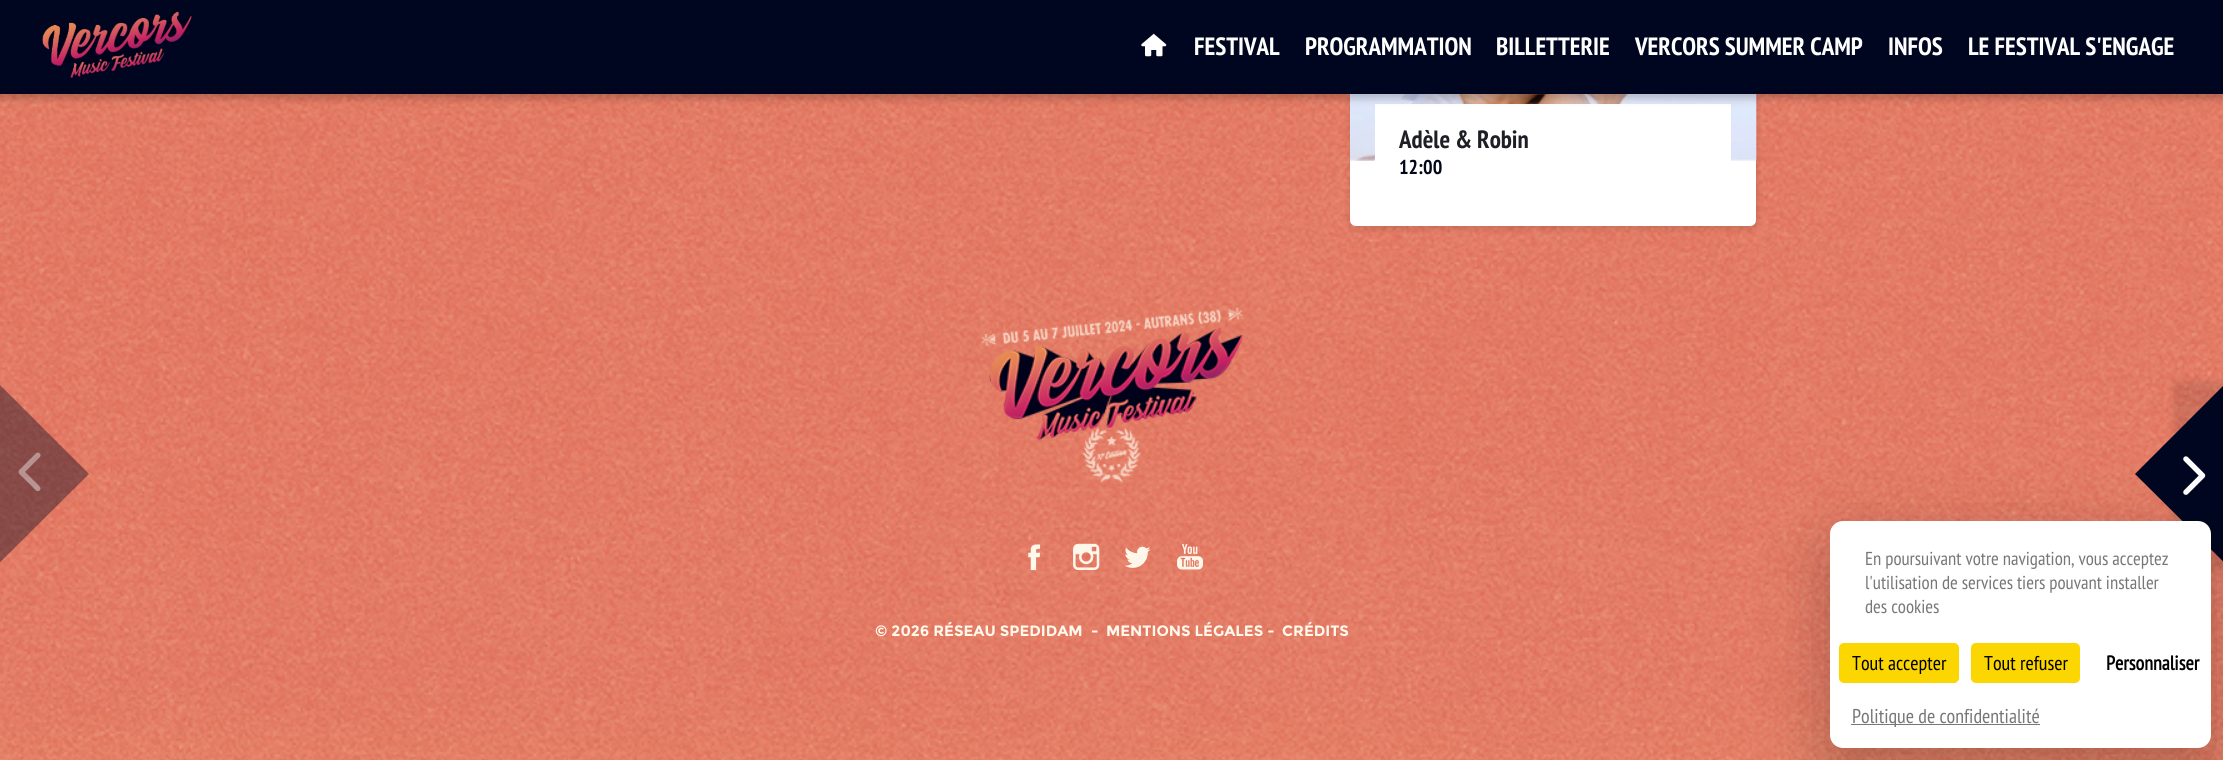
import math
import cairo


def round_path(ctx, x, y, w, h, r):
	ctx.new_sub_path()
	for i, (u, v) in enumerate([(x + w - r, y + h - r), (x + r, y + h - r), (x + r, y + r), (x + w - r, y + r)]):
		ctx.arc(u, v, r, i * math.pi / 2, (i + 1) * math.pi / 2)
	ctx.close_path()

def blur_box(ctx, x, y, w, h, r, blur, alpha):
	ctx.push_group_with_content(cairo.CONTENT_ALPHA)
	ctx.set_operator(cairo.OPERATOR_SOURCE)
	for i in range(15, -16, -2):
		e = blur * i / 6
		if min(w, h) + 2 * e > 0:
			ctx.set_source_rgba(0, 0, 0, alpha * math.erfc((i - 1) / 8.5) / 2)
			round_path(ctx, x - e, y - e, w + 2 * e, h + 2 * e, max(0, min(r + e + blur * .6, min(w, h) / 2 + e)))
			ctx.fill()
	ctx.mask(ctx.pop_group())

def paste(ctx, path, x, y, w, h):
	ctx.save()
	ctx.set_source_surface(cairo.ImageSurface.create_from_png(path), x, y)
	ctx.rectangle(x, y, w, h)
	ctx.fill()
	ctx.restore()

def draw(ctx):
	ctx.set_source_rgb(1, 1, 1)
	ctx.paint()
	paste(ctx, 'media/1.png', 0, 94, 2223, 666)
	ctx.set_source_rgb(0, 0, 0)
	blur_box(ctx, 1349, -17, 409, 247, 8, 3, 0.1)
	ctx.set_source_rgb(1, 1, 1)
	ctx.new_path()
	ctx.move_to(1350, -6)
	ctx.line_to(1756, -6)
	ctx.line_to(1756, 220)
	ctx.curve_to(1756, 223.5, 1753.5, 226, 1750, 226)
	ctx.line_to(1356, 226)
	ctx.curve_to(1352.5, 226, 1350, 223.5, 1350, 220)
	ctx.close_path()
	ctx.fill()
	paste(ctx, 'media/4.png', 1350, 94, 407, 67)
	ctx.rectangle(1375, 104, 356, 57)
	ctx.fill()
	ctx.set_source_rgb(0, 0, 0)
	blur_box(ctx, -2, 0, 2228, 99, 0, 4, 0.2)
	ctx.set_source_rgb(0, 0.024, 0.125)
	ctx.rectangle(0, 0, 2223, 94)
	ctx.fill()
	paste(ctx, 'media/2.png', 42, 11, 150, 67)
	paste(ctx, 'media/3.png', 1141, 33, 26, 24)
	ctx.select_font_face('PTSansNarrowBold', cairo.FONT_SLANT_NORMAL, cairo.FONT_WEIGHT_BOLD)
	ctx.set_font_size(25)
	ctx.set_source_rgb(1, 1, 1)
	for x, y, s in [
		(1194, 55, 'FESTIVAL'),
		(1305, 55, 'PROGRAMMATION'),
		(1496, 55, 'BILLETTERIE'),
		(1635, 55, 'VERCORS SUMMER CAMP'),
		(1888, 55, 'INFOS'),
		(1968, 55, 'LE FESTIVAL S\'ENGAGE'),
	]:
		ctx.move_to(x, y)
		ctx.show_text(s)
	ctx.set_source_rgb(0.114, 0.122, 0.141)
	ctx.move_to(1399, 148)
	ctx.show_text('Adèle & Robin')
	ctx.set_font_size(20)
	ctx.set_source_rgb(0, 0.035, 0.09)
	ctx.move_to(1399, 174)
	ctx.show_text('12:00')
	ctx.set_source_rgba(0, 0.024, 0.125, 0.4)
	ctx.new_path()
	ctx.move_to(-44, 341)
	ctx.line_to(89, 474)
	ctx.line_to(-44, 606)
	ctx.line_to(-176, 474)
	ctx.close_path()
	ctx.fill()
	paste(ctx, 'media/5.png', 18, 452, 23, 39)
	ctx.set_source_rgb(0, 0, 0)
	blur_box(ctx, 2173, 381, 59, 190, 0, 3, 0.1)
	ctx.set_source_rgb(0, 0.024, 0.125)
	ctx.new_path()
	ctx.move_to(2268, 341)
	ctx.line_to(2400, 474)
	ctx.line_to(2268, 606)
	ctx.line_to(2135, 474)
	ctx.close_path()
	ctx.fill()
	paste(ctx, 'media/6.png', 2183, 456, 23, 39)
	paste(ctx, 'media/7.png', 981, 307, 262, 176)
	paste(ctx, 'media/8.png', 1028, 544, 13, 27)
	paste(ctx, 'media/9.png', 1073, 543, 27, 28)
	paste(ctx, 'media/10.png', 1124, 546, 27, 22)
	paste(ctx, 'media/11.png', 1177, 544, 26, 26)
	ctx.select_font_face('Montserrat', cairo.FONT_SLANT_NORMAL, cairo.FONT_WEIGHT_BOLD)
	ctx.set_font_size(15)
	ctx.set_source_rgb(1, 0.969, 0.918)
	for x, y, s in [
		(875, 636, '© 2026 RÉSEAU SPEDIDAM'),
		(1091, 636, '-'),
		(1106, 636, 'MENTIONS LÉGALES -'),
		(1282, 636, 'CRÉDITS'),
	]:
		ctx.move_to(x, y)
		ctx.show_text(s)
	ctx.set_source_rgb(0, 0, 0)
	blur_box(ctx, 1830, 546, 381, 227, 13, 37.5, 0.25)
	ctx.set_source_rgb(1, 1, 1)
	round_path(ctx, 1830, 521, 381, 227, 13)
	ctx.fill()
	ctx.select_font_face('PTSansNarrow')
	ctx.set_font_size(18.75)
	ctx.set_source_rgb(0.467, 0.467, 0.467)
	for x, y, s in [
		(1865, 565, 'En poursuivant votre navigation, vous acceptez'),
		(1865, 589, 'l\'utilisation de services tiers pouvant installer'),
		(1865, 613, 'des cookies'),
	]:
		ctx.move_to(x, y)
		ctx.show_text(s)
	ctx.set_source_rgb(0.984, 0.839, 0)
	round_path(ctx, 1839, 643, 120, 40, 5)
	ctx.fill()
	ctx.set_font_size(20)
	ctx.set_source_rgb(0, 0, 0)
	ctx.move_to(1852, 670)
	ctx.show_text('Tout accepter')
	ctx.set_source_rgb(0.984, 0.839, 0)
	round_path(ctx, 1971, 643, 109, 40, 5)
	ctx.fill()
	ctx.set_source_rgb(0, 0, 0)
	ctx.move_to(1984, 670)
	ctx.show_text('Tout refuser')
	ctx.select_font_face('PTSansNarrow', cairo.FONT_SLANT_NORMAL, cairo.FONT_WEIGHT_BOLD)
	ctx.move_to(2106, 670)
	ctx.show_text('Personnaliser')
	ctx.set_source_rgb(0.467, 0.467, 0.467)
	ctx.rectangle(1851, 724, 189, 1)
	ctx.fill()
	ctx.select_font_face('PTSansNarrow')
	ctx.move_to(1852, 723)
	ctx.show_text('Politique de confidentialité')


surface = cairo.ImageSurface(cairo.FORMAT_RGB24, 2223, 760)
ctx = cairo.Context(surface)
options = cairo.FontOptions()
options.set_hint_metrics(cairo.HINT_METRICS_OFF)
options.set_hint_style(cairo.HINT_STYLE_NONE)
ctx.set_font_options(options)
ctx.set_miter_limit(4)
draw(ctx)
surface.write_to_png('image.png')
